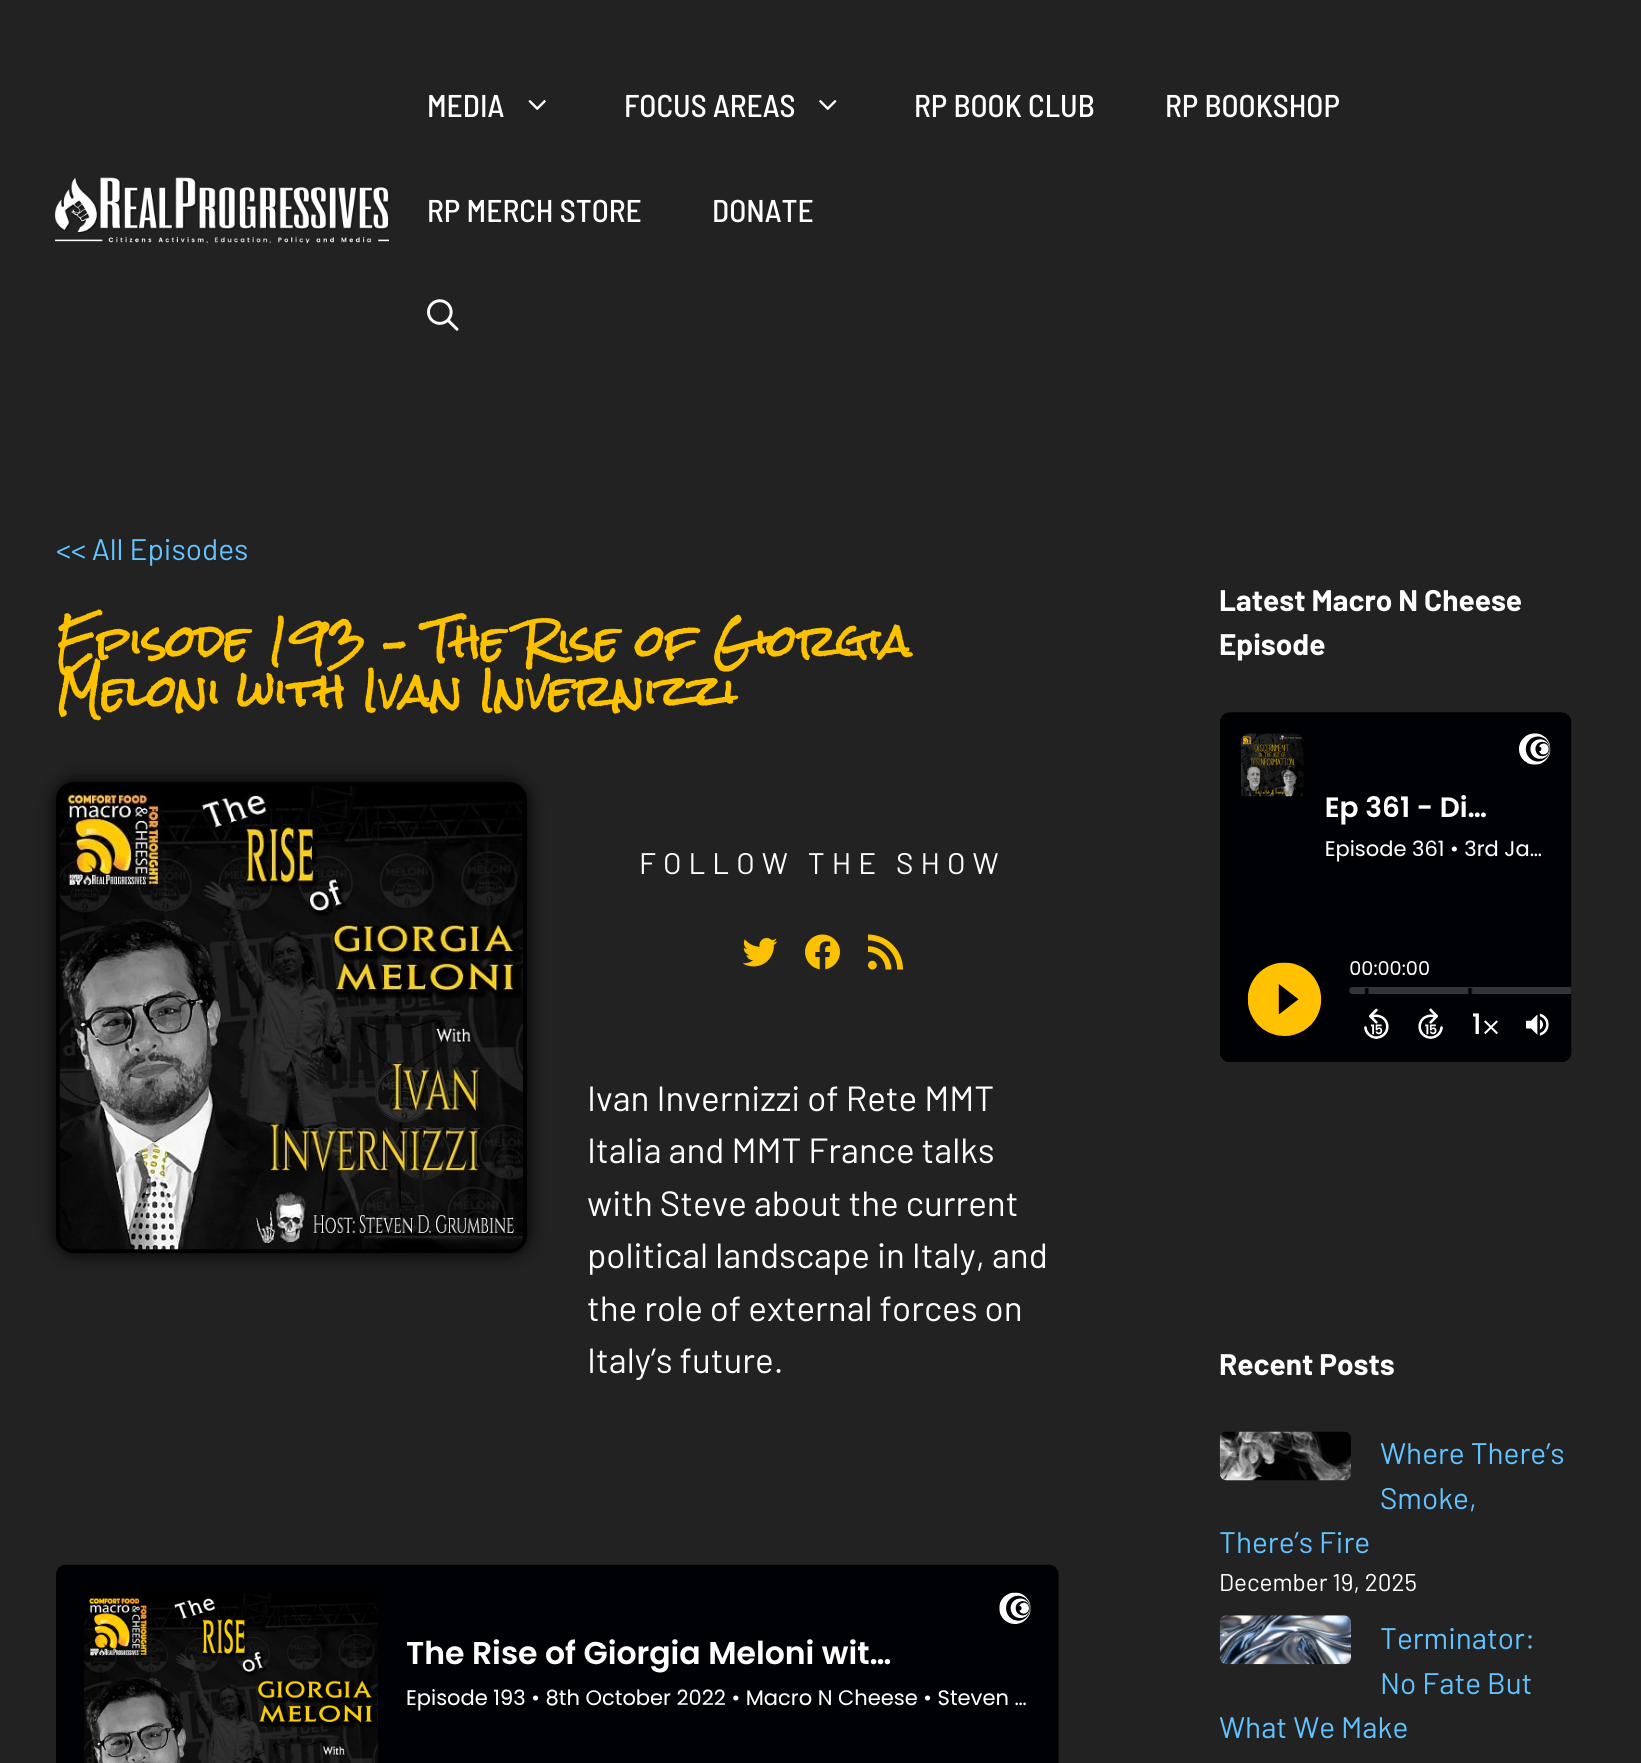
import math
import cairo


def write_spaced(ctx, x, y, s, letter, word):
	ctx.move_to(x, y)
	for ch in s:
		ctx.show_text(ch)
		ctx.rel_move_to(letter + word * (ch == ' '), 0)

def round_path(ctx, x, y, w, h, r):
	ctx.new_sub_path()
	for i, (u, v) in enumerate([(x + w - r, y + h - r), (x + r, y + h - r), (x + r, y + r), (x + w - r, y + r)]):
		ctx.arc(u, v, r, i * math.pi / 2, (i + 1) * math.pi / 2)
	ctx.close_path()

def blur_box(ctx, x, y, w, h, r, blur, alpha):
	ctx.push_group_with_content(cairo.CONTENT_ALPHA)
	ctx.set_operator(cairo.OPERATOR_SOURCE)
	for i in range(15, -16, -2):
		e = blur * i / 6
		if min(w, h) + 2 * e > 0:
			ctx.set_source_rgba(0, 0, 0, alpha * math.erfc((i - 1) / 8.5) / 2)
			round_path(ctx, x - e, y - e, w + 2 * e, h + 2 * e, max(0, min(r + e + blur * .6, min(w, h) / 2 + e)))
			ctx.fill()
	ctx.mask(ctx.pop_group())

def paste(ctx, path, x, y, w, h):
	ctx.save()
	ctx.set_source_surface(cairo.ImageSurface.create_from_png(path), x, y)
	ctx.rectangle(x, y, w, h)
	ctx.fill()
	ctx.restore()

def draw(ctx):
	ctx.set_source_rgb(0.133, 0.133, 0.133)
	ctx.paint()
	paste(ctx, 'media/1.png', 54, 177, 336, 67)
	ctx.select_font_face('Barlow Semi Condensed Medium')
	ctx.set_font_size(31.5)
	ctx.set_source_rgb(1, 1, 1)
	ctx.move_to(427, 117)
	ctx.show_text('MEDIA')
	paste(ctx, 'media/2.png', 528, 100, 18, 10)
	ctx.move_to(624, 117)
	ctx.show_text('FOCUS AREAS')
	paste(ctx, 'media/3.png', 819, 100, 18, 10)
	for x, y, s in [
		(914, 117, 'RP BOOK CLUB'),
		(1165, 117, 'RP BOOKSHOP'),
		(427, 222, 'RP MERCH STORE'),
		(712, 222, 'DONATE'),
	]:
		ctx.move_to(x, y)
		ctx.show_text(s)
	paste(ctx, 'media/4.png', 427, 299, 32, 32)
	ctx.select_font_face('Barlow')
	ctx.set_font_size(29.75)
	ctx.set_source_rgb(0.38, 0.765, 1)
	ctx.move_to(56, 560)
	ctx.show_text('<< All Episodes')
	ctx.select_font_face('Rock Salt', cairo.FONT_SLANT_NORMAL, cairo.FONT_WEIGHT_BOLD)
	ctx.set_font_size(42)
	ctx.set_source_rgb(0.988, 0.757, 0)
	ctx.move_to(56, 658)
	ctx.show_text('Episode 193 – The Rise of Giorgia')
	ctx.move_to(56, 708)
	ctx.show_text('Meloni with Ivan Invernizzi')
	ctx.set_source_rgb(0, 0, 0)
	blur_box(ctx, 56, 782, 471, 471, 18, 9, 1)
	round_path(ctx, 58, 784, 467, 467, 16)
	ctx.set_source_rgb(0, 0, 0)
	ctx.set_line_width(4)
	ctx.stroke()
	paste(ctx, 'media/5.png', 59, 786, 464, 464)
	ctx.select_font_face('Barlow')
	ctx.set_font_size(29.75)
	ctx.set_source_rgb(1, 1, 1)
	write_spaced(ctx, 639, 874, 'FOLLOW THE SHOW', 7, 0)
	paste(ctx, 'media/6.png', 742, 938, 36, 29)
	paste(ctx, 'media/7.png', 805, 934, 35, 36)
	paste(ctx, 'media/8.png', 868, 934, 35, 36)
	ctx.set_font_size(35)
	for x, y, s in [
		(587, 1111, 'Ivan Invernizzi of Rete MMT'),
		(587, 1163, 'Italia and MMT France talks'),
		(587, 1216, 'with Steve about the current'),
		(587, 1268, 'political landscape in Italy, and'),
		(587, 1321, 'the role of external forces on'),
		(587, 1373, 'Italy’s future.'),
	]:
		ctx.move_to(x, y)
		ctx.show_text(s)
	paste(ctx, 'media/9.png', 56, 1564, 1003, 199)
	ctx.select_font_face('Barlow', cairo.FONT_SLANT_NORMAL, cairo.FONT_WEIGHT_BOLD)
	ctx.set_font_size(29.75)
	ctx.move_to(1219, 611)
	ctx.show_text('Latest Macro N Cheese')
	ctx.move_to(1219, 655)
	ctx.show_text('Episode')
	paste(ctx, 'media/10.png', 1220, 712, 352, 350)
	ctx.move_to(1219, 1375)
	ctx.show_text('Recent Posts')
	paste(ctx, 'media/11.png', 1219, 1431, 132, 50)
	ctx.select_font_face('Barlow')
	ctx.set_source_rgb(0.38, 0.765, 1)
	for x, y, s in [
		(1380, 1464, 'Where There’s'),
		(1380, 1509, 'Smoke,'),
		(1219, 1553, 'There’s Fire'),
	]:
		ctx.move_to(x, y)
		ctx.show_text(s)
	ctx.set_font_size(24.25)
	ctx.set_source_rgb(1, 1, 1)
	ctx.move_to(1219, 1591)
	ctx.show_text('December 19, 2025')
	paste(ctx, 'media/12.png', 1219, 1615, 132, 50)
	ctx.set_font_size(29.75)
	ctx.set_source_rgb(0.38, 0.765, 1)
	for x, y, s in [
		(1380, 1649, 'Terminator:'),
		(1380, 1694, 'No Fate But'),
		(1219, 1738, 'What We Make'),
	]:
		ctx.move_to(x, y)
		ctx.show_text(s)


surface = cairo.ImageSurface(cairo.FORMAT_RGB24, 1641, 1763)
ctx = cairo.Context(surface)
options = cairo.FontOptions()
options.set_hint_metrics(cairo.HINT_METRICS_OFF)
options.set_hint_style(cairo.HINT_STYLE_NONE)
ctx.set_font_options(options)
ctx.set_miter_limit(4)
draw(ctx)
surface.write_to_png('image.png')
